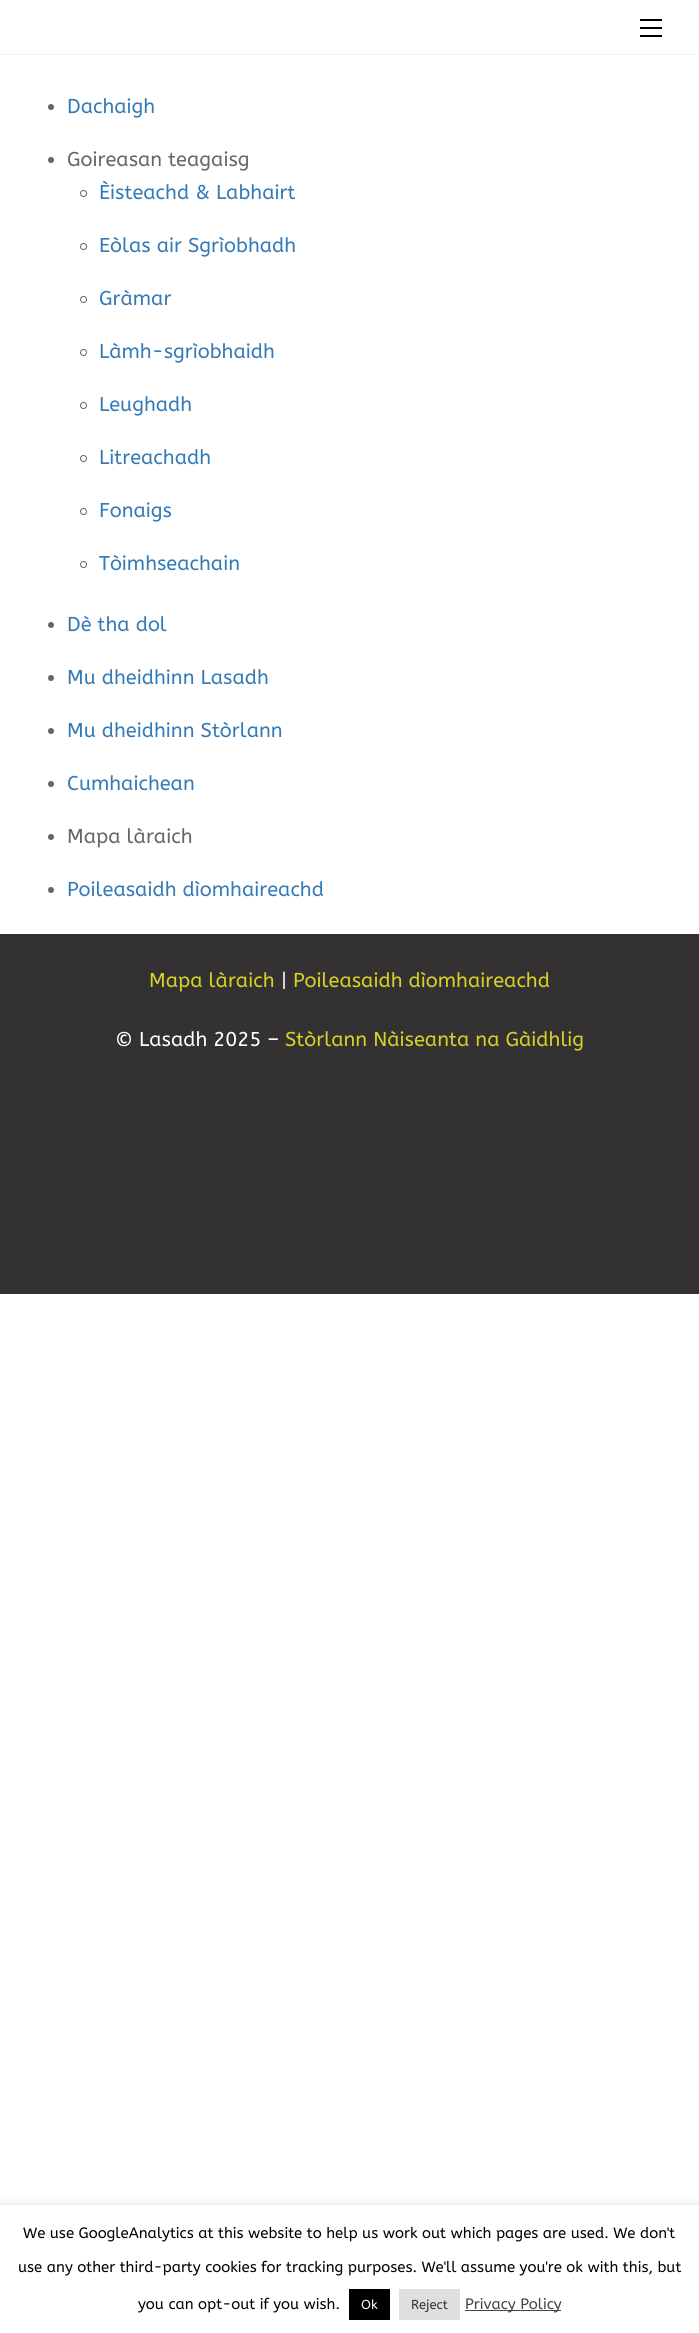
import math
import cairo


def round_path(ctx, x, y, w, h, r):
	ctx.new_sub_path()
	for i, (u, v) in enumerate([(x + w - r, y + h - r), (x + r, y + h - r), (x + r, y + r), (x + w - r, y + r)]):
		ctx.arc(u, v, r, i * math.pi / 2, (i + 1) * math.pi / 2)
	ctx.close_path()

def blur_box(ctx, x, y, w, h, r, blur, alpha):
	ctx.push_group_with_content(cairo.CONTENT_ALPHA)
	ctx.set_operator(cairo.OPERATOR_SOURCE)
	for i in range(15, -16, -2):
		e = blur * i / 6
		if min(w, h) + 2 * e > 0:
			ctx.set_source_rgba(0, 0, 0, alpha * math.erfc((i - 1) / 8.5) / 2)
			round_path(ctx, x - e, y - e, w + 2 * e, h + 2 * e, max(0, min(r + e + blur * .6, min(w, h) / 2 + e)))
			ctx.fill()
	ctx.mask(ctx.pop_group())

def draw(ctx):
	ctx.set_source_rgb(1, 1, 1)
	ctx.paint()
	ctx.set_source_rgb(0.949, 0.949, 0.949)
	ctx.rectangle(0, 54, 699, 1)
	ctx.fill()
	ctx.set_source_rgb(0, 0, 0)
	ctx.rectangle(640, 35, 22, 2)
	ctx.rectangle(640, 19, 22, 2)
	ctx.rectangle(640, 27, 22, 2)
	ctx.fill()
	ctx.set_source_rgb(0.4, 0.4, 0.4)
	ctx.arc(51, 107, 3, 0, 2 * math.pi)
	ctx.fill()
	ctx.select_font_face('ABeeZee')
	ctx.set_font_size(20)
	ctx.set_source_rgb(0.2, 0.478, 0.718)
	ctx.move_to(67, 113)
	ctx.show_text('Dachaigh')
	ctx.set_source_rgb(0.4, 0.4, 0.4)
	ctx.new_path()
	ctx.arc(51, 160, 3, 0, 2 * math.pi)
	ctx.fill()
	ctx.move_to(67, 166)
	ctx.show_text('Goireasan teagaisg')
	ctx.new_path()
	ctx.arc(83.5, 193.5, 3, 0, 2 * math.pi)
	ctx.set_line_width(1)
	ctx.stroke()
	ctx.set_source_rgb(0.2, 0.478, 0.718)
	ctx.move_to(99, 199)
	ctx.show_text('Èisteachd & Labhairt')
	ctx.new_path()
	ctx.arc(83.5, 246.5, 3, 0, 2 * math.pi)
	ctx.set_source_rgb(0.4, 0.4, 0.4)
	ctx.stroke()
	ctx.set_source_rgb(0.2, 0.478, 0.718)
	ctx.move_to(99, 252)
	ctx.show_text('Eòlas air Sgrìobhadh')
	ctx.new_path()
	ctx.arc(83.5, 299.5, 3, 0, 2 * math.pi)
	ctx.set_source_rgb(0.4, 0.4, 0.4)
	ctx.stroke()
	ctx.set_source_rgb(0.2, 0.478, 0.718)
	ctx.move_to(99, 305)
	ctx.show_text('Gràmar')
	ctx.new_path()
	ctx.arc(83.5, 352.5, 3, 0, 2 * math.pi)
	ctx.set_source_rgb(0.4, 0.4, 0.4)
	ctx.stroke()
	ctx.set_source_rgb(0.2, 0.478, 0.718)
	ctx.move_to(99, 358)
	ctx.show_text('Làmh-sgrìobhaidh')
	ctx.new_path()
	ctx.arc(83.5, 405.5, 3, 0, 2 * math.pi)
	ctx.set_source_rgb(0.4, 0.4, 0.4)
	ctx.stroke()
	ctx.set_source_rgb(0.2, 0.478, 0.718)
	ctx.move_to(99, 411)
	ctx.show_text('Leughadh')
	ctx.new_path()
	ctx.arc(83.5, 458.5, 3, 0, 2 * math.pi)
	ctx.set_source_rgb(0.4, 0.4, 0.4)
	ctx.stroke()
	ctx.set_source_rgb(0.2, 0.478, 0.718)
	ctx.move_to(99, 464)
	ctx.show_text('Litreachadh')
	ctx.new_path()
	ctx.arc(83.5, 511.5, 3, 0, 2 * math.pi)
	ctx.set_source_rgb(0.4, 0.4, 0.4)
	ctx.stroke()
	ctx.set_source_rgb(0.2, 0.478, 0.718)
	ctx.move_to(99, 517)
	ctx.show_text('Fonaigs')
	ctx.new_path()
	ctx.arc(83.5, 564.5, 3, 0, 2 * math.pi)
	ctx.set_source_rgb(0.4, 0.4, 0.4)
	ctx.stroke()
	ctx.set_source_rgb(0.2, 0.478, 0.718)
	ctx.move_to(99, 570)
	ctx.show_text('Tòimhseachain')
	ctx.set_source_rgb(0.4, 0.4, 0.4)
	ctx.new_path()
	ctx.arc(51, 625, 3, 0, 2 * math.pi)
	ctx.fill()
	ctx.set_source_rgb(0.2, 0.478, 0.718)
	ctx.move_to(67, 631)
	ctx.show_text('Dè tha dol')
	ctx.set_source_rgb(0.4, 0.4, 0.4)
	ctx.new_path()
	ctx.arc(51, 678, 3, 0, 2 * math.pi)
	ctx.fill()
	ctx.set_source_rgb(0.2, 0.478, 0.718)
	ctx.move_to(67, 684)
	ctx.show_text('Mu dheidhinn Lasadh')
	ctx.set_source_rgb(0.4, 0.4, 0.4)
	ctx.new_path()
	ctx.arc(51, 731, 3, 0, 2 * math.pi)
	ctx.fill()
	ctx.set_source_rgb(0.2, 0.478, 0.718)
	ctx.move_to(67, 737)
	ctx.show_text('Mu dheidhinn Stòrlann')
	ctx.set_source_rgb(0.4, 0.4, 0.4)
	ctx.new_path()
	ctx.arc(51, 784, 3, 0, 2 * math.pi)
	ctx.fill()
	ctx.set_source_rgb(0.2, 0.478, 0.718)
	ctx.move_to(67, 790)
	ctx.show_text('Cumhaichean')
	ctx.set_source_rgb(0.4, 0.4, 0.4)
	ctx.new_path()
	ctx.arc(51, 837, 3, 0, 2 * math.pi)
	ctx.fill()
	ctx.move_to(67, 843)
	ctx.show_text('Mapa làraich')
	ctx.new_path()
	ctx.arc(51, 890, 3, 0, 2 * math.pi)
	ctx.fill()
	ctx.set_source_rgb(0.2, 0.478, 0.718)
	ctx.move_to(67, 896)
	ctx.show_text('Poileasaidh dìomhaireachd')
	ctx.set_source_rgb(0.2, 0.192, 0.196)
	ctx.rectangle(0, 934, 699, 360)
	ctx.fill()
	ctx.set_source_rgb(0.839, 0.827, 0.145)
	ctx.move_to(149, 987)
	ctx.show_text('Mapa làraich')
	ctx.set_source_rgb(1, 1, 1)
	ctx.move_to(281, 987)
	ctx.show_text('|')
	ctx.set_source_rgb(0.839, 0.827, 0.145)
	ctx.move_to(293, 987)
	ctx.show_text('Poileasaidh dìomhaireachd')
	ctx.set_source_rgb(1, 1, 1)
	ctx.move_to(115, 1046)
	ctx.show_text('© Lasadh 2025 –')
	ctx.set_source_rgb(0.839, 0.827, 0.145)
	ctx.move_to(285, 1046)
	ctx.show_text('Stòrlann Nàiseanta na Gàidhlig')
	ctx.save()
	ctx.rectangle(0, 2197, 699, 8)
	ctx.clip()
	ctx.set_source_rgb(0.675, 0.671, 0.671)
	blur_box(ctx, 0, 2204, 699, 128, 0, 5, 0.3)
	ctx.restore()
	ctx.set_font_size(15)
	ctx.set_source_rgb(0, 0, 0)
	for x, y, s in [
		(23, 2238, 'We use GoogleAnalytics at this website to help us work out which pages are used. We don\'t'),
		(18, 2272, 'use any other third-party cookies for tracking purposes. We\'ll assume you\'re ok with this, but'),
		(138, 2309, 'you can opt-out if you wish.'),
	]:
		ctx.move_to(x, y)
		ctx.show_text(s)
	ctx.rectangle(349, 2289, 41, 31)
	ctx.fill()
	ctx.set_font_size(13)
	ctx.set_source_rgb(1, 1, 1)
	ctx.move_to(361, 2309)
	ctx.show_text('Ok')
	ctx.set_source_rgb(0.871, 0.875, 0.878)
	ctx.rectangle(399, 2289, 61, 31)
	ctx.fill()
	ctx.set_source_rgb(0.2, 0.2, 0.2)
	ctx.move_to(411, 2309)
	ctx.show_text('Reject')
	ctx.set_source_rgb(0.267, 0.267, 0.267)
	ctx.rectangle(465, 2310, 96, 1)
	ctx.fill()
	ctx.set_font_size(15)
	ctx.move_to(465, 2309)
	ctx.show_text('Privacy Policy')


surface = cairo.ImageSurface(cairo.FORMAT_RGB24, 699, 2333)
ctx = cairo.Context(surface)
options = cairo.FontOptions()
options.set_hint_metrics(cairo.HINT_METRICS_OFF)
options.set_hint_style(cairo.HINT_STYLE_NONE)
ctx.set_font_options(options)
ctx.set_miter_limit(4)
draw(ctx)
surface.write_to_png('image.png')
